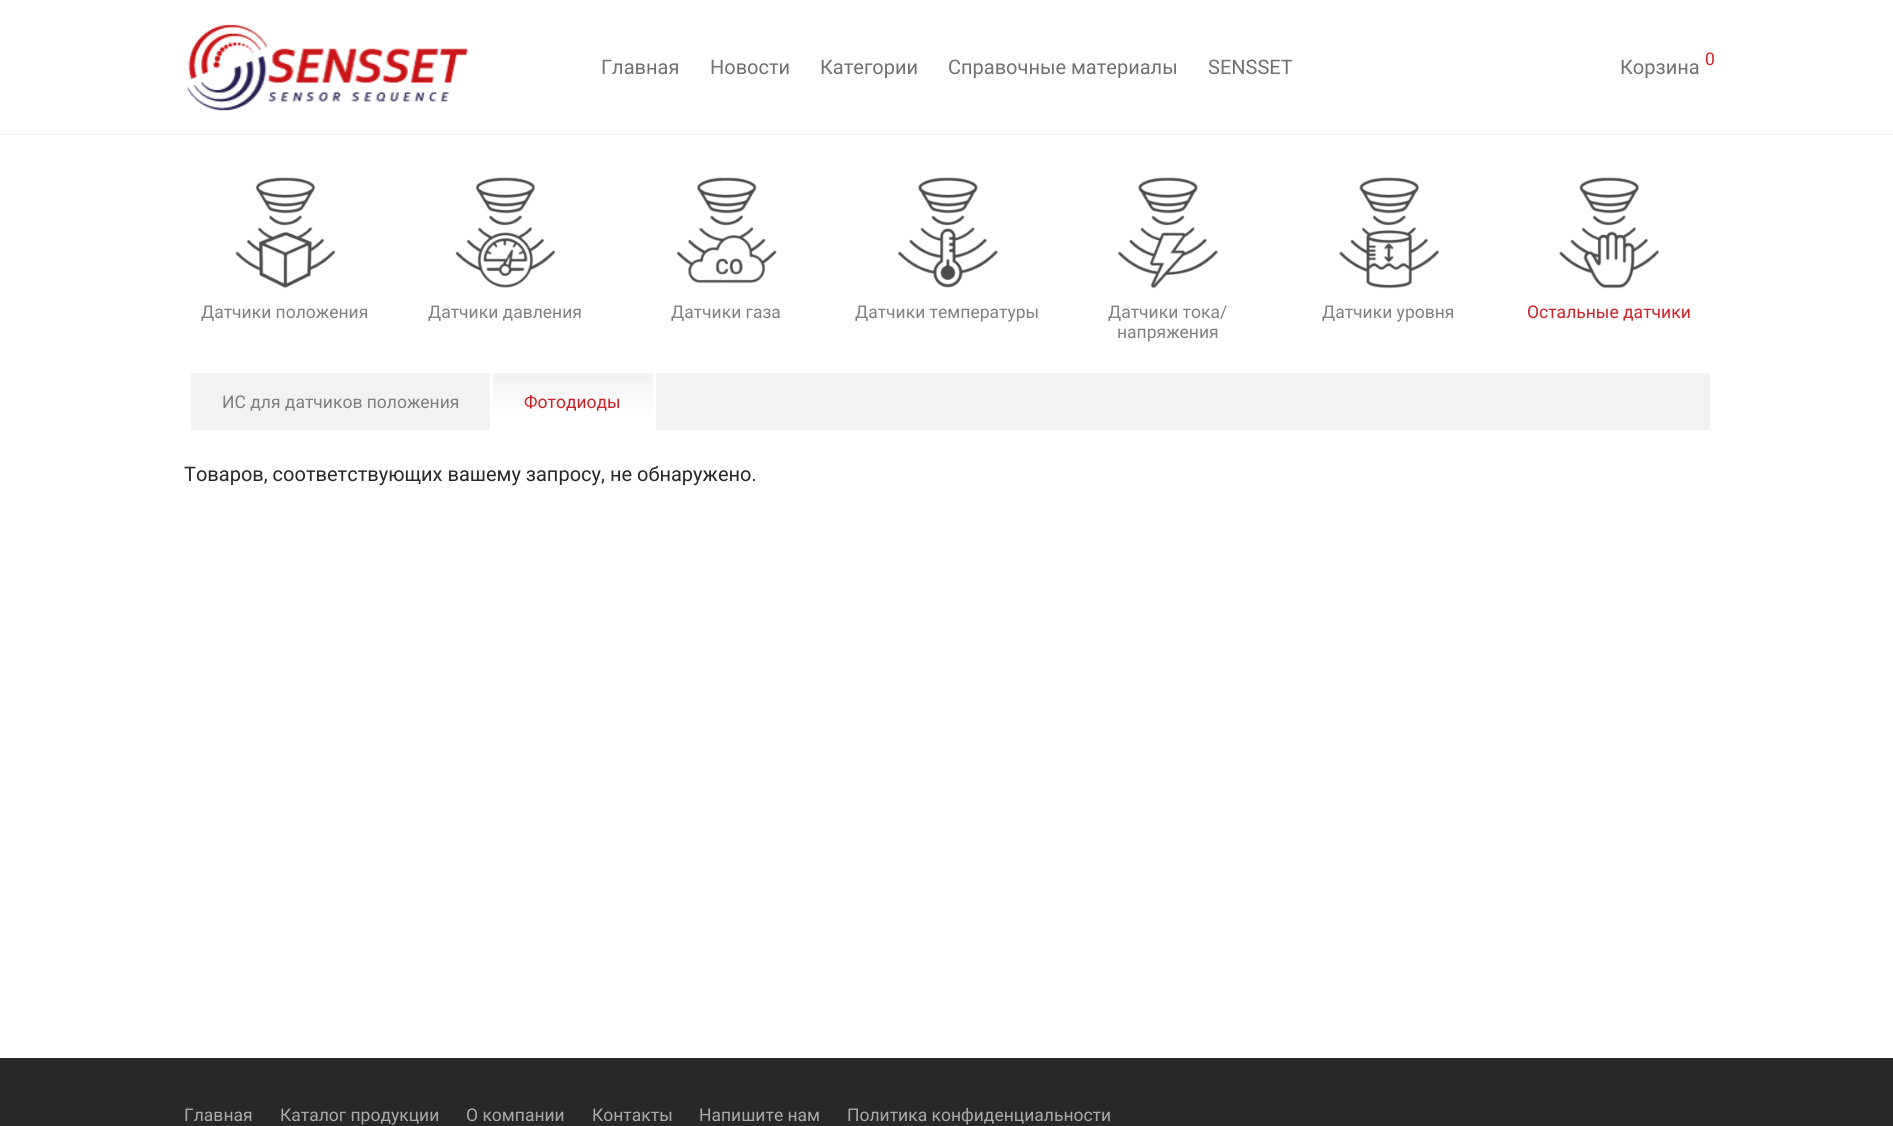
import math
import cairo


def paste(ctx, path, x, y, w, h):
	ctx.save()
	ctx.set_source_surface(cairo.ImageSurface.create_from_png(path), x, y)
	ctx.rectangle(x, y, w, h)
	ctx.fill()
	ctx.restore()

def draw(ctx):
	ctx.set_source_rgb(1, 1, 1)
	ctx.paint()
	ctx.set_source_rgb(0.933, 0.933, 0.933)
	ctx.rectangle(0, 134, 1893, 1)
	ctx.fill()
	paste(ctx, 'media/1.png', 187, 24, 281, 87)
	ctx.select_font_face('Roboto')
	ctx.set_font_size(20)
	ctx.set_source_rgb(0.439, 0.439, 0.439)
	for x, y, s in [
		(601, 74, 'Главная'),
		(710, 74, 'Новости'),
		(820, 74, 'Категории'),
		(948, 74, 'Справочные материалы'),
		(1208, 74, 'SENSSET'),
		(1620, 74, 'Корзина'),
	]:
		ctx.move_to(x, y)
		ctx.show_text(s)
	ctx.set_font_size(17.5)
	ctx.set_source_rgb(0.804, 0.125, 0.153)
	ctx.move_to(1705, 65)
	ctx.show_text('0')
	paste(ctx, 'media/2.png', 235, 177, 101, 112)
	ctx.set_source_rgb(0.502, 0.502, 0.502)
	ctx.move_to(201, 318)
	ctx.show_text('Датчики положения')
	paste(ctx, 'media/3.png', 455, 177, 101, 111)
	ctx.move_to(428, 318)
	ctx.show_text('Датчики давления')
	paste(ctx, 'media/4.png', 676, 177, 101, 107)
	ctx.move_to(671, 318)
	ctx.show_text('Датчики газа')
	paste(ctx, 'media/5.png', 897, 177, 101, 111)
	ctx.move_to(855, 318)
	ctx.show_text('Датчики температуры')
	paste(ctx, 'media/6.png', 1117, 177, 101, 112)
	ctx.move_to(1108, 318)
	ctx.show_text('Датчики тока/')
	ctx.move_to(1117, 338)
	ctx.show_text('напряжения')
	paste(ctx, 'media/7.png', 1339, 177, 100, 112)
	ctx.move_to(1322, 318)
	ctx.show_text('Датчики уровня')
	paste(ctx, 'media/8.png', 1559, 177, 100, 112)
	ctx.set_source_rgb(0.804, 0.125, 0.153)
	ctx.move_to(1527, 318)
	ctx.show_text('Остальные датчики')
	ctx.set_source_rgb(0.949, 0.949, 0.949)
	ctx.rectangle(191, 373, 1519, 57)
	ctx.fill()
	ctx.set_source_rgb(1, 1, 1)
	ctx.rectangle(490, 373, 3, 57)
	ctx.fill()
	ctx.set_source_rgb(0.502, 0.502, 0.502)
	ctx.move_to(222, 408)
	ctx.show_text('ИС для датчиков положения')
	gradient = cairo.LinearGradient(573, 373, 573, 430)
	gradient.add_color_stop_rgba(0, 0.949, 0.949, 0.949, 1)
	gradient.add_color_stop_rgba(0.8, 1, 1, 1, 1)
	ctx.set_source(gradient)
	ctx.rectangle(493, 382, 160, 48)
	ctx.fill()
	ctx.set_source_rgb(1, 1, 1)
	ctx.rectangle(653, 373, 3, 57)
	ctx.fill()
	ctx.set_source_rgb(0.804, 0.125, 0.153)
	ctx.move_to(524, 408)
	ctx.show_text('Фотодиоды')
	ctx.set_font_size(20)
	ctx.set_source_rgb(0.157, 0.157, 0.157)
	ctx.move_to(184, 481)
	ctx.show_text('Товаров, соответствующих вашему запросу, не обнаружено.')
	ctx.rectangle(0, 1058, 1893, 68)
	ctx.fill()
	ctx.set_font_size(17.5)
	ctx.set_source_rgb(0.667, 0.667, 0.667)
	for x, y, s in [
		(184, 1121, 'Главная'),
		(280, 1121, 'Каталог продукции'),
		(466, 1121, 'О компании'),
		(592, 1121, 'Контакты'),
		(699, 1121, 'Напишите нам'),
		(847, 1121, 'Политика конфиденциальности'),
	]:
		ctx.move_to(x, y)
		ctx.show_text(s)


surface = cairo.ImageSurface(cairo.FORMAT_RGB24, 1893, 1126)
ctx = cairo.Context(surface)
options = cairo.FontOptions()
options.set_hint_metrics(cairo.HINT_METRICS_OFF)
options.set_hint_style(cairo.HINT_STYLE_NONE)
ctx.set_font_options(options)
ctx.set_miter_limit(4)
draw(ctx)
surface.write_to_png('image.png')
